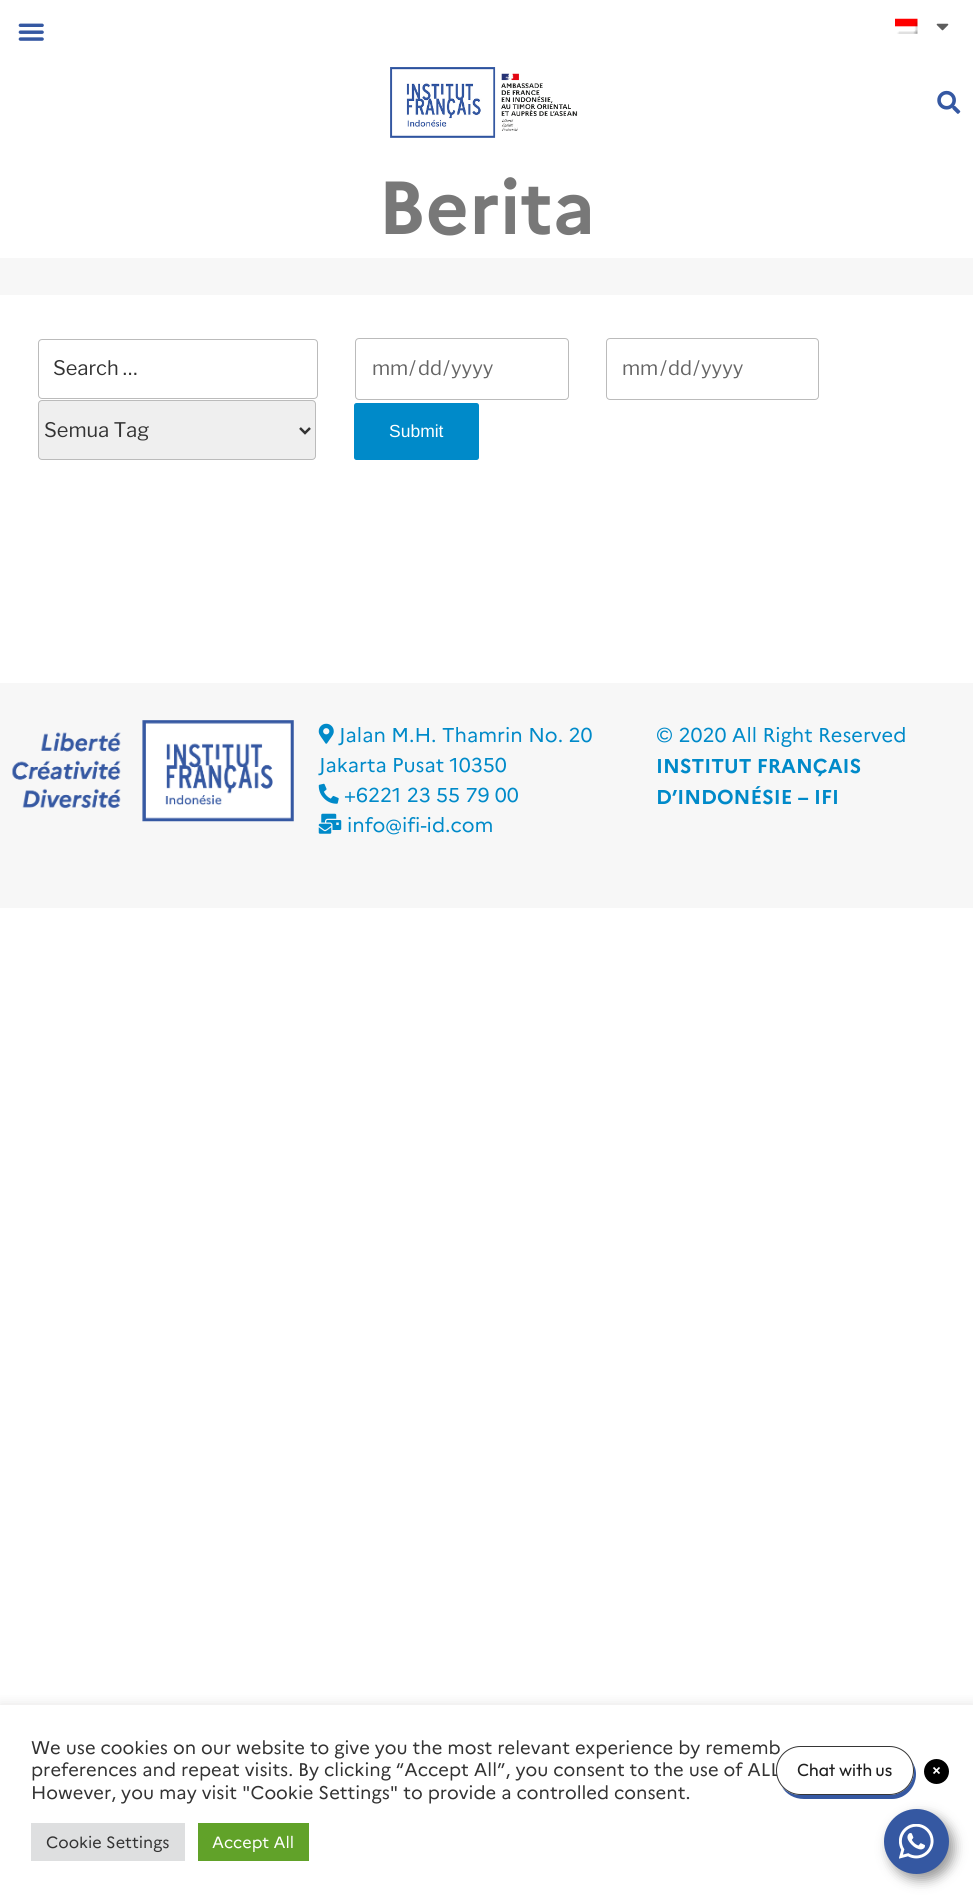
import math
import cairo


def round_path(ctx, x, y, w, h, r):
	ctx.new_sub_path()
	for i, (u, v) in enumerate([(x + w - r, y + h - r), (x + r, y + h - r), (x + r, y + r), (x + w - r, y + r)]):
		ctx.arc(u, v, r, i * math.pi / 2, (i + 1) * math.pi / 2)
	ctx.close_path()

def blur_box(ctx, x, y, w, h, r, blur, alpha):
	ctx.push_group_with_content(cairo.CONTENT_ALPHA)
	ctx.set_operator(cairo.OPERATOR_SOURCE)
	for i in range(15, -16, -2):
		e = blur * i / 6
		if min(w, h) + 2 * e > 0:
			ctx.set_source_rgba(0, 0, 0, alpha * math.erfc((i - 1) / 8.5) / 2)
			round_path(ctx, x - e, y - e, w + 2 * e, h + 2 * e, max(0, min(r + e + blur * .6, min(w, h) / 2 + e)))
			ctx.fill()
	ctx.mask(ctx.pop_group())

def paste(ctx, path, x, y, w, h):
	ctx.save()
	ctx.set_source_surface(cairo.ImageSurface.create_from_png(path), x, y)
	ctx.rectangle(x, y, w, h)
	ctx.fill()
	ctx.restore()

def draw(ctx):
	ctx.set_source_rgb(1, 1, 1)
	ctx.paint()
	paste(ctx, 'media/1.png', 18, 23, 26, 18)
	paste(ctx, 'media/2.png', 895, 18, 23, 16)
	paste(ctx, 'media/3.png', 936, 23, 13, 8)
	paste(ctx, 'media/4.png', 937, 90, 24, 24)
	paste(ctx, 'media/5.png', 390, 67, 188, 71)
	ctx.select_font_face('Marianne', cairo.FONT_SLANT_NORMAL, cairo.FONT_WEIGHT_BOLD)
	ctx.set_font_size(75)
	ctx.set_source_rgb(0.471, 0.471, 0.471)
	ctx.move_to(378, 234)
	ctx.show_text('Berita')
	ctx.set_source_rgb(0.965, 0.965, 0.965)
	ctx.rectangle(0, 258, 973, 37)
	ctx.fill()
	round_path(ctx, 38.5, 339.5, 279, 59, 3.5)
	ctx.set_source_rgb(0.733, 0.733, 0.733)
	ctx.set_line_width(1)
	ctx.stroke()
	ctx.select_font_face('Libre Franklin Thin')
	ctx.set_font_size(20)
	ctx.set_source_rgb(0.2, 0.2, 0.2)
	ctx.move_to(53, 375)
	ctx.show_text('Search …')
	round_path(ctx, 355.5, 338.5, 213, 61, 3.5)
	ctx.set_source_rgb(0.733, 0.733, 0.733)
	ctx.stroke()
	ctx.set_source_rgb(0.4, 0.4, 0.4)
	for x, y, s in [
		(372, 375, 'mm'),
		(409, 375, '/'),
		(418, 375, 'dd'),
		(443, 375, '/'),
		(451, 375, 'yyyy'),
	]:
		ctx.move_to(x, y)
		ctx.show_text(s)
	round_path(ctx, 606.5, 338.5, 212, 61, 3.5)
	ctx.set_source_rgb(0.733, 0.733, 0.733)
	ctx.stroke()
	ctx.set_source_rgb(0.4, 0.4, 0.4)
	for x, y, s in [
		(622, 375, 'mm'),
		(660, 375, '/'),
		(668, 375, 'dd'),
		(693, 375, '/'),
		(701, 375, 'yyyy'),
	]:
		ctx.move_to(x, y)
		ctx.show_text(s)
	ctx.set_source_rgb(0.937, 0.937, 0.937)
	round_path(ctx, 38.5, 400.5, 277, 59, 3.5)
	ctx.fill_preserve()
	ctx.set_source_rgb(0.733, 0.733, 0.733)
	ctx.stroke()
	ctx.new_path()
	ctx.move_to(300, 428)
	ctx.line_to(305, 433)
	ctx.line_to(310, 428)
	ctx.set_source_rgb(0.2, 0.2, 0.2)
	ctx.set_line_width(2.5)
	ctx.stroke()
	ctx.move_to(44, 437)
	ctx.show_text('Semua Tag')
	ctx.set_source_rgb(0, 0.541, 0.788)
	round_path(ctx, 354, 403, 125, 57, 2.5)
	ctx.fill()
	ctx.select_font_face('Liberation Sans')
	ctx.set_font_size(17.5)
	ctx.set_source_rgb(1, 1, 1)
	ctx.move_to(389, 437)
	ctx.show_text('Submit')
	ctx.set_source_rgb(0.965, 0.965, 0.965)
	ctx.rectangle(0, 683, 973, 225)
	ctx.fill()
	paste(ctx, 'media/6.png', 12, 720, 282, 102)
	paste(ctx, 'media/7.png', 318, 723, 16, 21)
	ctx.select_font_face('Marianne')
	ctx.set_font_size(20)
	ctx.set_source_rgb(0, 0.541, 0.788)
	ctx.move_to(339, 742)
	ctx.show_text('Jalan M.H. Thamrin No. 20')
	ctx.move_to(319, 772)
	ctx.show_text('Jakarta Pusat 10350')
	paste(ctx, 'media/8.png', 318, 783, 21, 21)
	ctx.move_to(344, 802)
	ctx.show_text('+6221 23 55 79 00')
	paste(ctx, 'media/9.png', 318, 813, 24, 21)
	ctx.move_to(347, 832)
	ctx.show_text('info@ifi-id.com')
	ctx.move_to(656, 742)
	ctx.show_text('© 2020 All Right Reserved')
	ctx.select_font_face('Marianne', cairo.FONT_SLANT_NORMAL, cairo.FONT_WEIGHT_BOLD)
	ctx.move_to(656, 773)
	ctx.show_text('INSTITUT FRANÇAIS')
	ctx.move_to(656, 804)
	ctx.show_text('D’INDONÉSIE – IFI')
	ctx.save()
	ctx.rectangle(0, 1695, 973, 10)
	ctx.clip()
	ctx.set_source_rgb(0.675, 0.671, 0.671)
	blur_box(ctx, 0, 1704, 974, 194, 0, 6, 0.3)
	ctx.restore()
	ctx.select_font_face('Marianne')
	ctx.set_font_size(18.35)
	ctx.set_source_rgb(0.2, 0.2, 0.2)
	for x, y, s in [
		(31, 1754, 'We use cookies on our website to give you the most relevant experience by rememb'),
		(31, 1776, 'preferences and repeat visits. By clicking “Accept All”, you consent to the use of ALL'),
		(31, 1799, 'However, you may visit "Cookie Settings" to provide a controlled consent.'),
	]:
		ctx.move_to(x, y)
		ctx.show_text(s)
	ctx.set_source_rgb(0.871, 0.875, 0.878)
	ctx.rectangle(31, 1823, 154, 38)
	ctx.fill()
	ctx.set_font_size(16.25)
	ctx.set_source_rgb(0.2, 0.2, 0.2)
	ctx.move_to(46, 1848)
	ctx.show_text('Cookie Settings')
	ctx.set_source_rgb(0.38, 0.635, 0.161)
	ctx.rectangle(198, 1823, 111, 38)
	ctx.fill()
	ctx.set_source_rgb(1, 1, 1)
	ctx.move_to(212, 1848)
	ctx.show_text('Accept All')
	ctx.set_source_rgb(0, 0, 0)
	blur_box(ctx, 889, 1815, 65, 65, 32.5, 6, 0.4)
	ctx.set_source_rgb(0.208, 0.345, 0.635)
	ctx.new_path()
	ctx.move_to(782, 1787)
	ctx.curve_to(786, 1794, 794, 1799, 804, 1799)
	ctx.line_to(892, 1799)
	ctx.curve_to(905, 1799, 916, 1788, 916, 1774)
	ctx.curve_to(916, 1769, 914, 1764, 911, 1760)
	ctx.curve_to(913, 1763, 914, 1767, 914, 1771)
	ctx.curve_to(914, 1784, 903, 1795, 889, 1795)
	ctx.line_to(801, 1795)
	ctx.curve_to(793, 1795, 787, 1792, 782, 1787)
	ctx.close_path()
	ctx.fill()
	ctx.set_source_rgb(1, 1, 1)
	round_path(ctx, 776.5, 1746.5, 137, 48, 24)
	ctx.fill_preserve()
	ctx.set_source_rgb(0.212, 0.212, 0.212)
	ctx.set_line_width(1)
	ctx.stroke()
	ctx.select_font_face('Outfit')
	ctx.set_font_size(17.5)
	ctx.set_source_rgb(0.125, 0.125, 0.125)
	ctx.move_to(797, 1776)
	ctx.show_text('Chat with us')
	ctx.set_source_rgb(0, 0, 0)
	ctx.new_path()
	ctx.arc(936.5, 1771.5, 12.5, 0, 2 * math.pi)
	ctx.fill()
	ctx.new_path()
	ctx.move_to(933.5, 1767.5)
	ctx.line_to(939.5, 1773.5)
	ctx.move_to(933.5, 1773.5)
	ctx.line_to(939.5, 1767.5)
	ctx.set_source_rgb(1, 1, 1)
	ctx.set_line_width(1.7)
	ctx.stroke()
	ctx.set_source_rgb(0.208, 0.345, 0.635)
	ctx.arc(916.5, 1841.5, 32.5, 0, 2 * math.pi)
	ctx.fill()
	paste(ctx, 'media/10.png', 899, 1824, 35, 35)


surface = cairo.ImageSurface(cairo.FORMAT_RGB24, 973, 1898)
ctx = cairo.Context(surface)
options = cairo.FontOptions()
options.set_hint_metrics(cairo.HINT_METRICS_OFF)
options.set_hint_style(cairo.HINT_STYLE_NONE)
ctx.set_font_options(options)
ctx.set_miter_limit(4)
draw(ctx)
surface.write_to_png('image.png')
